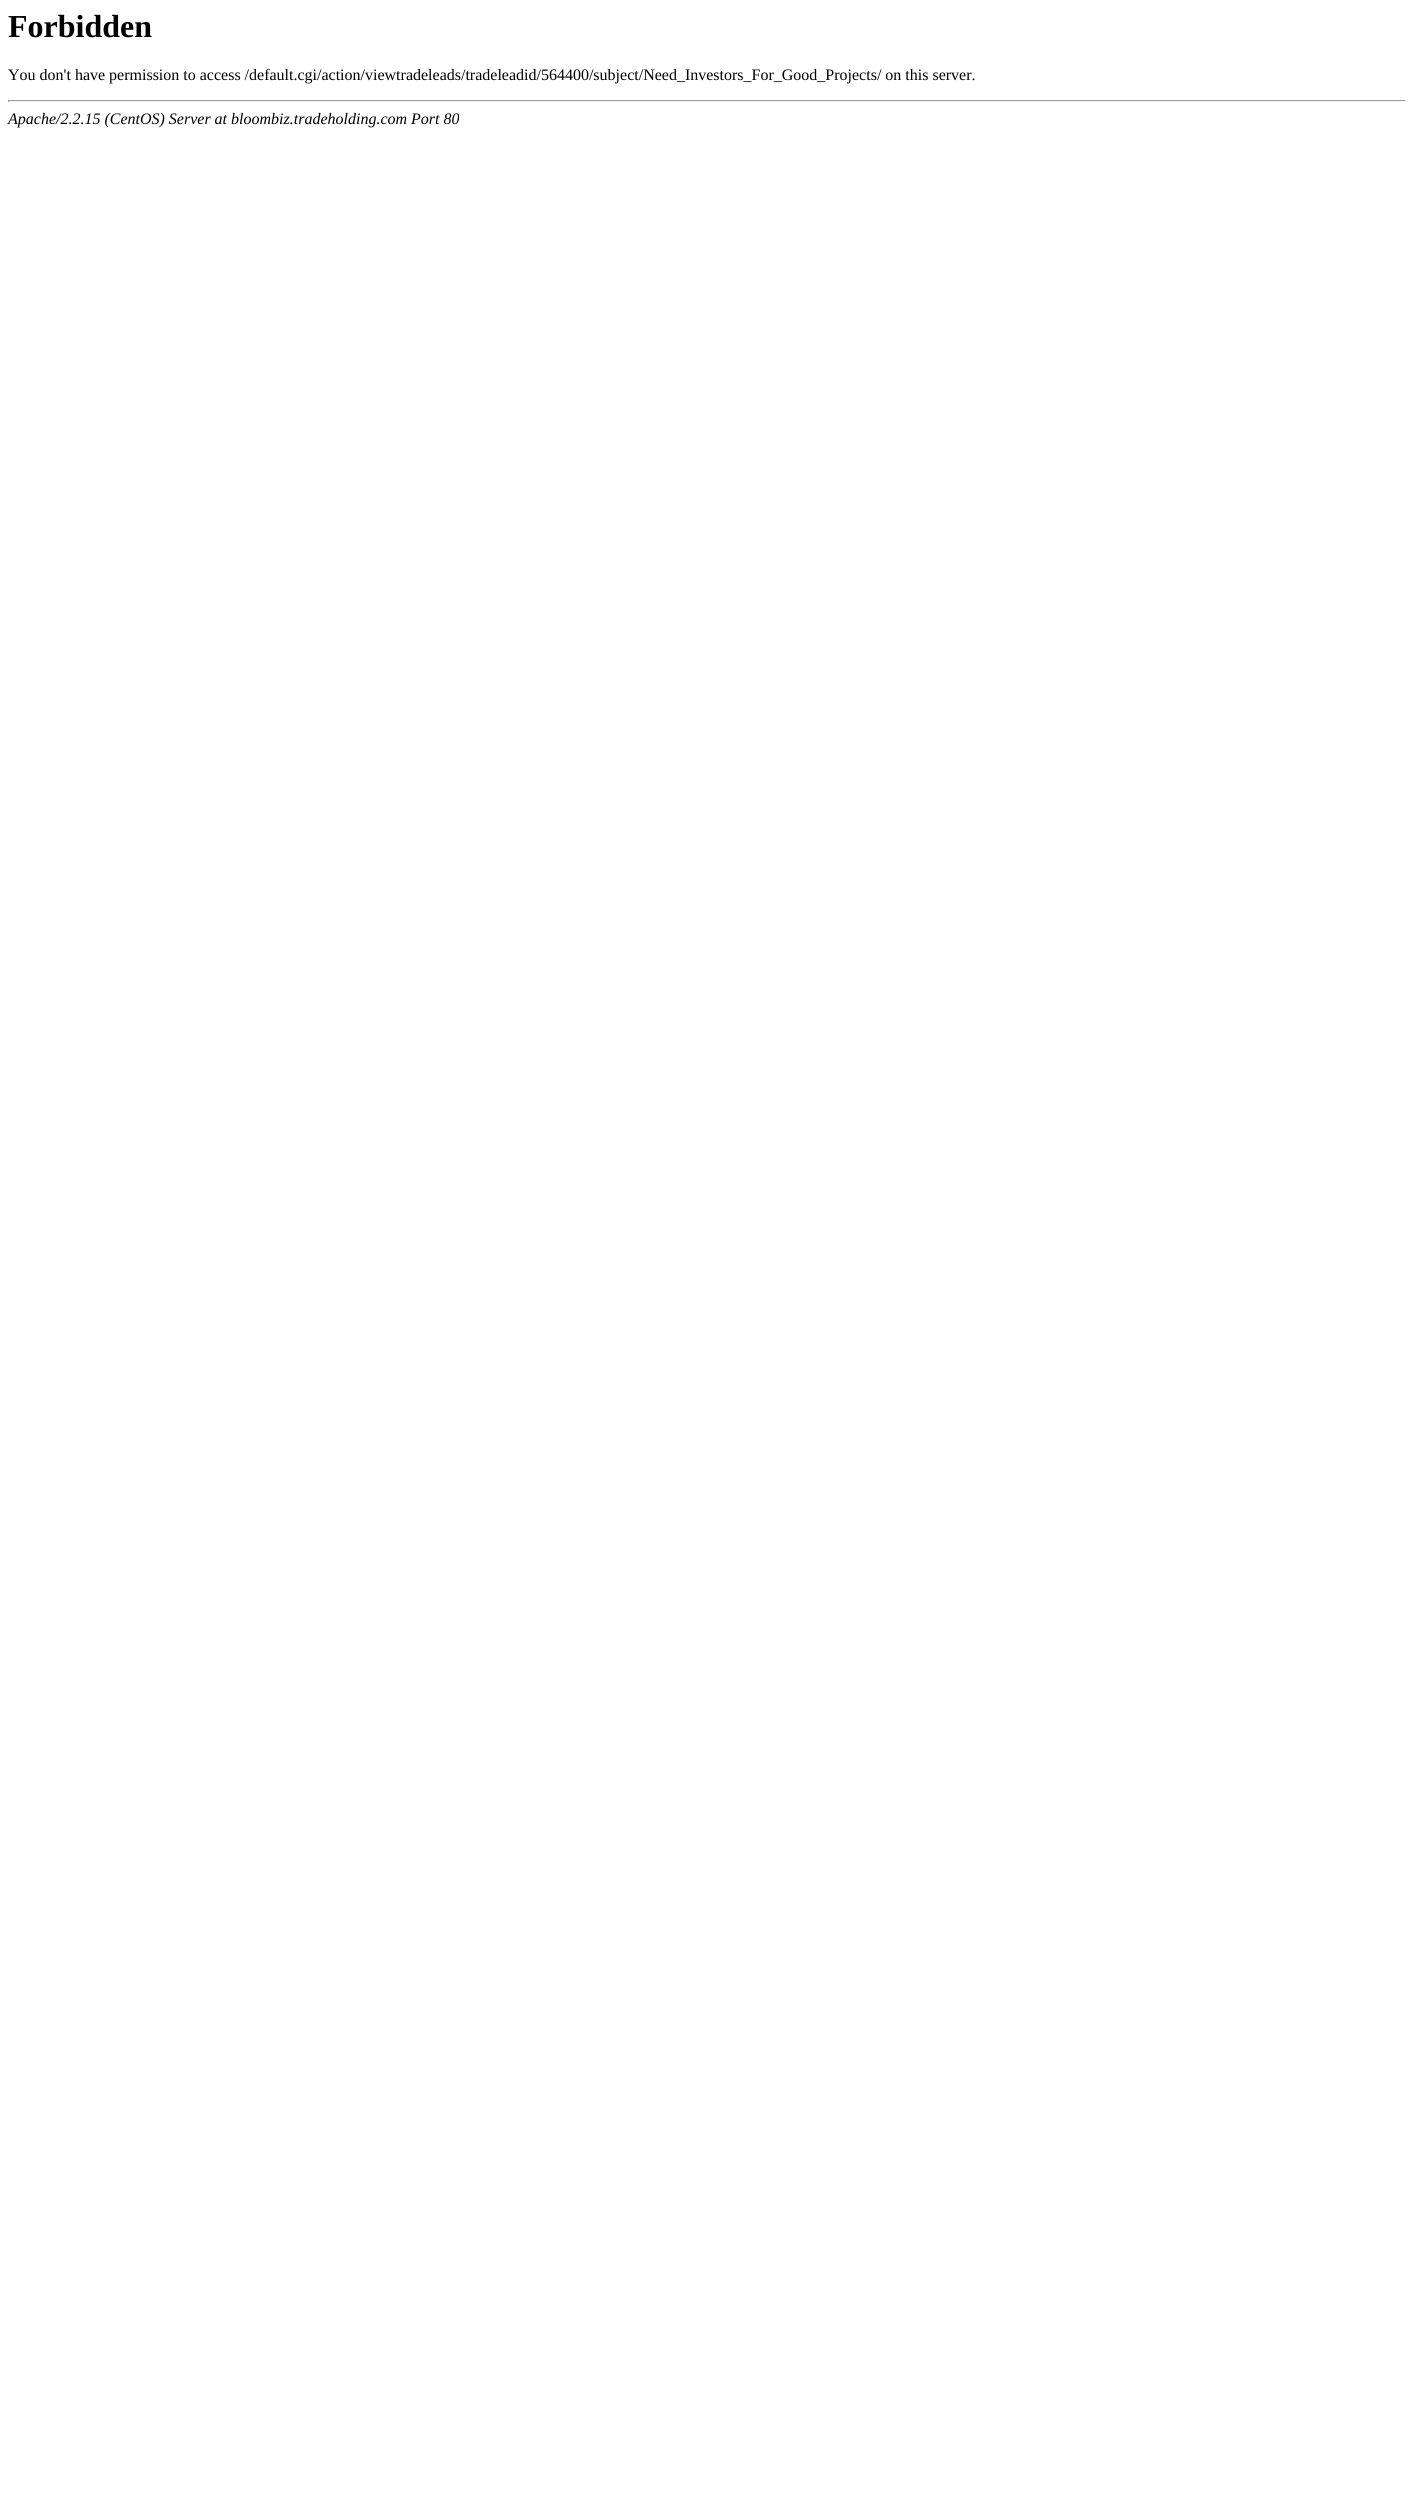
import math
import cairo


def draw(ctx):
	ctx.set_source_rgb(1, 1, 1)
	ctx.paint()
	ctx.select_font_face('Liberation Serif', cairo.FONT_SLANT_NORMAL, cairo.FONT_WEIGHT_BOLD)
	ctx.set_font_size(32)
	ctx.set_source_rgb(0, 0, 0)
	ctx.move_to(8, 37)
	ctx.show_text('Forbidden')
	ctx.select_font_face('Liberation Serif')
	ctx.set_font_size(16)
	ctx.move_to(8, 80)
	ctx.show_text('You don\'t have permission to access /default.cgi/action/viewtradeleads/tradeleadid/564400/subject/Need_Investors_For_Good_Projects/ on this server.')
	ctx.set_source_rgb(0.624, 0.624, 0.624)
	ctx.rectangle(8, 100, 1398, 1)
	ctx.fill()
	ctx.set_source_rgb(0.933, 0.933, 0.933)
	ctx.rectangle(1405, 100, 1, 2)
	ctx.rectangle(8, 101, 1398, 1)
	ctx.fill()
	ctx.set_source_rgb(0.624, 0.624, 0.624)
	ctx.rectangle(8, 100, 1, 2)
	ctx.fill()
	ctx.select_font_face('Liberation Serif', cairo.FONT_SLANT_ITALIC)
	ctx.set_source_rgb(0, 0, 0)
	ctx.move_to(8, 124)
	ctx.show_text('Apache/2.2.15 (CentOS) Server at bloombiz.tradeholding.com Port 80')


surface = cairo.ImageSurface(cairo.FORMAT_RGB24, 1414, 2499)
ctx = cairo.Context(surface)
options = cairo.FontOptions()
options.set_hint_metrics(cairo.HINT_METRICS_OFF)
options.set_hint_style(cairo.HINT_STYLE_NONE)
ctx.set_font_options(options)
ctx.set_miter_limit(4)
draw(ctx)
surface.write_to_png('image.png')
